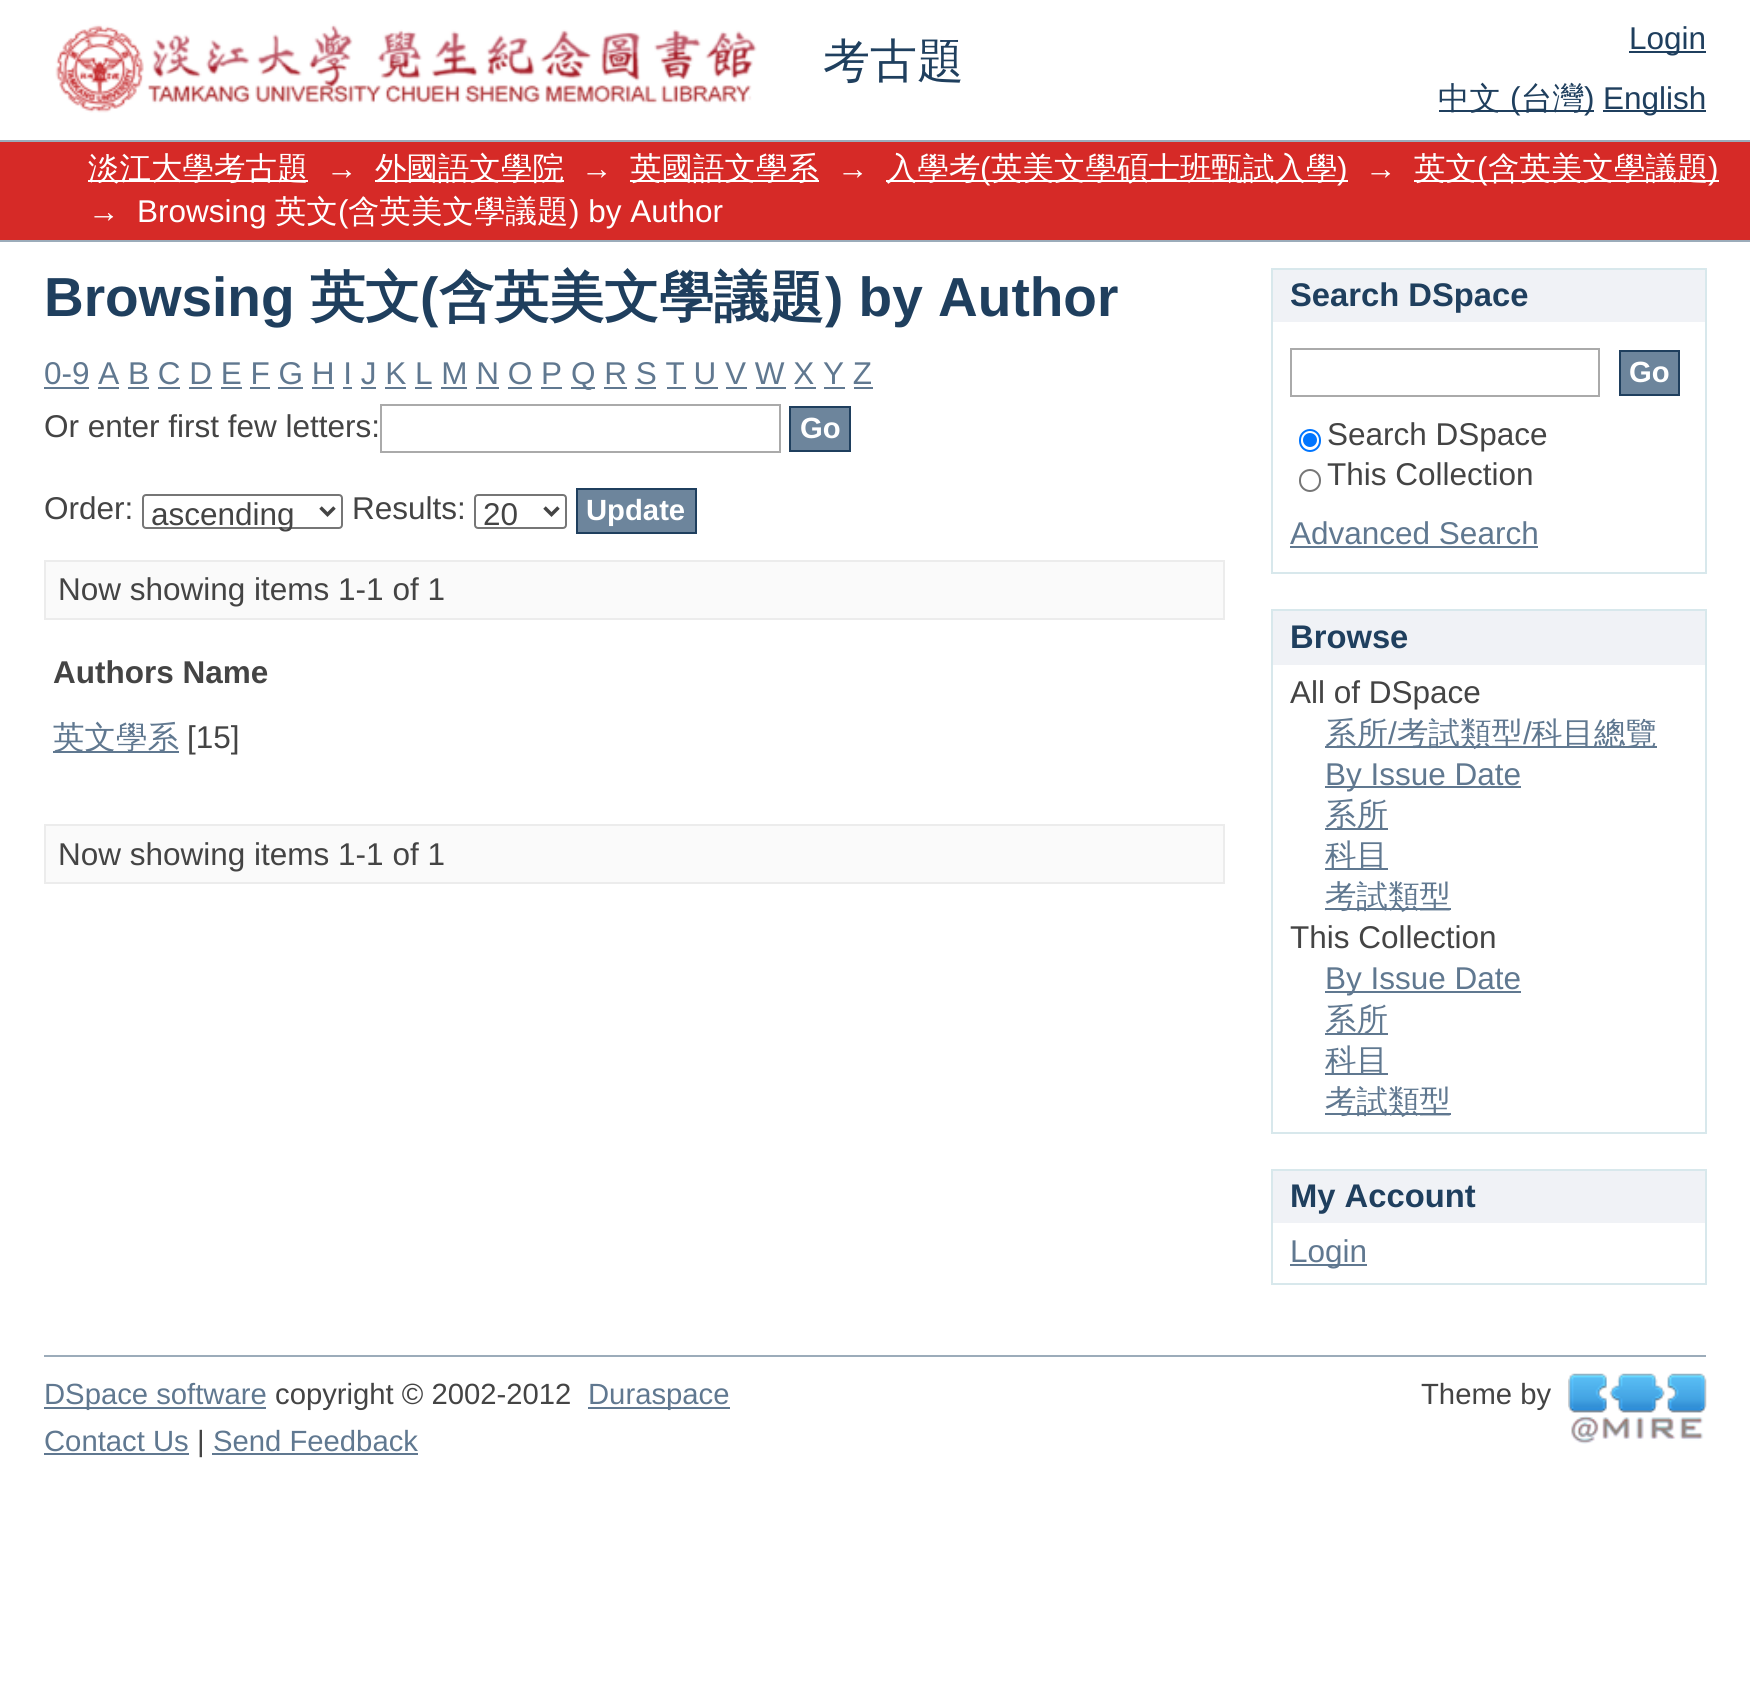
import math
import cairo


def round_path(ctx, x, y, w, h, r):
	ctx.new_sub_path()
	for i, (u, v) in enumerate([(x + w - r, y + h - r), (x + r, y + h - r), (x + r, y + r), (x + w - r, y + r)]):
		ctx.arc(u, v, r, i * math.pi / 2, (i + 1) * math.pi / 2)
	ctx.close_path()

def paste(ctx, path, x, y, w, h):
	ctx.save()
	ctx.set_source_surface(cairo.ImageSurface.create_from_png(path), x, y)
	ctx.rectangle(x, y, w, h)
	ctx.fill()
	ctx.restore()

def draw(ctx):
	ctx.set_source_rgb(1, 1, 1)
	ctx.paint()
	paste(ctx, 'media/1.png', 55, 24, 702, 89)
	ctx.select_font_face('WenQuanYi Zen Hei Medium')
	ctx.set_font_size(47)
	ctx.set_source_rgb(0.122, 0.247, 0.369)
	ctx.move_to(823, 77)
	ctx.show_text('考古題')
	ctx.rectangle(1629, 51, 77, 2)
	ctx.fill()
	ctx.select_font_face('Liberation Sans')
	ctx.set_font_size(31.5)
	ctx.move_to(1629, 49)
	ctx.show_text('Login')
	ctx.rectangle(1439, 110, 155, 2)
	ctx.fill()
	ctx.select_font_face('WenQuanYi Zen Hei Medium')
	ctx.move_to(1438, 109)
	ctx.show_text('中文')
	ctx.select_font_face('Liberation Sans')
	ctx.move_to(1510, 109)
	ctx.show_text('(')
	ctx.select_font_face('WenQuanYi Zen Hei Medium')
	ctx.move_to(1521, 109)
	ctx.show_text('台灣')
	ctx.select_font_face('Liberation Sans')
	ctx.move_to(1584, 109)
	ctx.show_text(')')
	ctx.rectangle(1603, 110, 103, 2)
	ctx.fill()
	ctx.move_to(1603, 109)
	ctx.show_text('English')
	ctx.set_source_rgb(0.839, 0.165, 0.153)
	ctx.rectangle(0, 142, 1750, 98)
	ctx.fill()
	ctx.set_source_rgb(0.612, 0.675, 0.729)
	ctx.rectangle(0, 140, 1750, 2)
	ctx.rectangle(0, 240, 1750, 2)
	ctx.fill()
	ctx.set_source_rgb(1, 1, 1)
	ctx.rectangle(88, 180, 220, 2)
	ctx.fill()
	ctx.select_font_face('WenQuanYi Zen Hei Medium')
	ctx.move_to(88, 179)
	ctx.show_text('淡江大學考古題')
	ctx.select_font_face('Liberation Sans')
	ctx.move_to(326, 179)
	ctx.show_text('→')
	ctx.rectangle(375, 180, 189, 2)
	ctx.fill()
	ctx.select_font_face('WenQuanYi Zen Hei Medium')
	ctx.move_to(375, 179)
	ctx.show_text('外國語文學院')
	ctx.select_font_face('Liberation Sans')
	ctx.move_to(581, 179)
	ctx.show_text('→')
	ctx.rectangle(630, 180, 189, 2)
	ctx.fill()
	ctx.select_font_face('WenQuanYi Zen Hei Medium')
	ctx.move_to(630, 179)
	ctx.show_text('英國語文學系')
	ctx.select_font_face('Liberation Sans')
	ctx.move_to(837, 179)
	ctx.show_text('→')
	ctx.rectangle(886, 180, 462, 2)
	ctx.fill()
	ctx.select_font_face('WenQuanYi Zen Hei Medium')
	ctx.move_to(886, 179)
	ctx.show_text('入學考')
	ctx.select_font_face('Liberation Sans')
	ctx.move_to(980, 179)
	ctx.show_text('(')
	ctx.select_font_face('WenQuanYi Zen Hei Medium')
	ctx.move_to(991, 179)
	ctx.show_text('英美文學碩士班甄試入學')
	ctx.select_font_face('Liberation Sans')
	ctx.move_to(1337, 179)
	ctx.show_text(')')
	ctx.move_to(1365, 179)
	ctx.show_text('→')
	ctx.rectangle(1414, 180, 305, 2)
	ctx.fill()
	ctx.select_font_face('WenQuanYi Zen Hei Medium')
	ctx.move_to(1414, 179)
	ctx.show_text('英文')
	ctx.select_font_face('Liberation Sans')
	ctx.move_to(1477, 179)
	ctx.show_text('(')
	ctx.select_font_face('WenQuanYi Zen Hei Medium')
	ctx.move_to(1488, 179)
	ctx.show_text('含英美文學議題')
	ctx.select_font_face('Liberation Sans')
	for x, y, s in [
		(1708, 179, ')'),
		(88, 222, '→'),
		(137, 222, 'Browsing'),
	]:
		ctx.move_to(x, y)
		ctx.show_text(s)
	ctx.select_font_face('WenQuanYi Zen Hei Medium')
	ctx.move_to(275, 222)
	ctx.show_text('英文')
	ctx.select_font_face('Liberation Sans')
	ctx.move_to(338, 222)
	ctx.show_text('(')
	ctx.select_font_face('WenQuanYi Zen Hei Medium')
	ctx.move_to(348, 222)
	ctx.show_text('含英美文學議題')
	ctx.select_font_face('Liberation Sans')
	ctx.move_to(569, 222)
	ctx.show_text(') by Author')
	ctx.select_font_face('Liberation Sans', cairo.FONT_SLANT_NORMAL, cairo.FONT_WEIGHT_BOLD)
	ctx.set_font_size(55)
	ctx.set_source_rgb(0.122, 0.247, 0.369)
	ctx.move_to(44, 316)
	ctx.show_text('Browsing')
	ctx.select_font_face('WenQuanYi Zen Hei', cairo.FONT_SLANT_NORMAL, cairo.FONT_WEIGHT_BOLD)
	ctx.move_to(310, 316)
	ctx.show_text('英文')
	ctx.select_font_face('Liberation Sans', cairo.FONT_SLANT_NORMAL, cairo.FONT_WEIGHT_BOLD)
	ctx.move_to(420, 316)
	ctx.show_text('(')
	ctx.select_font_face('WenQuanYi Zen Hei', cairo.FONT_SLANT_NORMAL, cairo.FONT_WEIGHT_BOLD)
	ctx.move_to(439, 316)
	ctx.show_text('含英美文學議題')
	ctx.select_font_face('Liberation Sans', cairo.FONT_SLANT_NORMAL, cairo.FONT_WEIGHT_BOLD)
	ctx.move_to(825, 316)
	ctx.show_text(') by Author')
	ctx.select_font_face('Liberation Sans')
	ctx.set_font_size(31.5)
	ctx.set_source_rgb(0.376, 0.471, 0.565)
	ctx.move_to(44, 384)
	ctx.show_text('0-9 A B C D E F G H I J K L M N O P')
	ctx.rectangle(44, 387, 45, 2)
	ctx.fill()
	ctx.rectangle(571, 387, 24, 2)
	ctx.fill()
	ctx.move_to(571, 384)
	ctx.show_text('Q R S T U V W X Y Z')
	ctx.rectangle(98, 387, 21, 2)
	ctx.rectangle(128, 387, 21, 2)
	ctx.rectangle(158, 387, 22, 2)
	ctx.rectangle(189, 387, 23, 2)
	ctx.rectangle(221, 387, 21, 2)
	ctx.rectangle(250, 387, 20, 2)
	ctx.rectangle(278, 387, 25, 2)
	ctx.rectangle(312, 387, 22, 2)
	ctx.rectangle(343, 387, 9, 2)
	ctx.rectangle(361, 387, 15, 2)
	ctx.rectangle(385, 387, 21, 2)
	ctx.rectangle(415, 387, 17, 2)
	ctx.rectangle(441, 387, 26, 2)
	ctx.rectangle(476, 387, 23, 2)
	ctx.rectangle(508, 387, 24, 2)
	ctx.rectangle(541, 387, 21, 2)
	ctx.rectangle(604, 387, 23, 2)
	ctx.rectangle(635, 387, 21, 2)
	ctx.rectangle(667, 387, 19, 2)
	ctx.rectangle(695, 387, 23, 2)
	ctx.rectangle(726, 387, 21, 2)
	ctx.rectangle(756, 387, 30, 2)
	ctx.rectangle(795, 387, 21, 2)
	ctx.rectangle(824, 387, 21, 2)
	ctx.rectangle(854, 387, 19, 2)
	ctx.fill()
	ctx.set_source_rgb(0.267, 0.267, 0.267)
	ctx.move_to(44, 437)
	ctx.show_text('Or enter first few letters:')
	ctx.rectangle(381, 405, 399, 47)
	ctx.set_source_rgb(0.667, 0.667, 0.667)
	ctx.stroke()
	ctx.set_source_rgb(0.427, 0.522, 0.612)
	ctx.rectangle(790, 407, 60, 44)
	ctx.fill_preserve()
	ctx.set_source_rgb(0.122, 0.247, 0.369)
	ctx.stroke()
	ctx.select_font_face('Liberation Sans', cairo.FONT_SLANT_NORMAL, cairo.FONT_WEIGHT_BOLD)
	ctx.set_font_size(29.25)
	ctx.set_source_rgb(1, 1, 1)
	ctx.move_to(800, 438)
	ctx.show_text('Go')
	ctx.select_font_face('Liberation Sans')
	ctx.set_font_size(31.5)
	ctx.set_source_rgb(0.267, 0.267, 0.267)
	ctx.move_to(44, 519)
	ctx.show_text('Order:')
	round_path(ctx, 143, 495, 199, 33, 3)
	ctx.set_source_rgb(0.463, 0.463, 0.463)
	ctx.stroke()
	ctx.new_path()
	ctx.move_to(320.5, 507.5)
	ctx.line_to(327.5, 514.5)
	ctx.line_to(334.5, 507.5)
	ctx.set_source_rgb(0.267, 0.267, 0.267)
	ctx.set_line_width(3.5)
	ctx.stroke()
	ctx.move_to(151, 525)
	ctx.show_text('ascending')
	ctx.move_to(352, 519)
	ctx.show_text('Results:')
	round_path(ctx, 475, 495, 91, 33, 3)
	ctx.set_source_rgb(0.463, 0.463, 0.463)
	ctx.set_line_width(2)
	ctx.stroke()
	ctx.new_path()
	ctx.move_to(544.5, 507.5)
	ctx.line_to(551.5, 514.5)
	ctx.line_to(558.5, 507.5)
	ctx.set_source_rgb(0.267, 0.267, 0.267)
	ctx.set_line_width(3.5)
	ctx.stroke()
	ctx.move_to(483, 525)
	ctx.show_text('20')
	ctx.set_source_rgb(0.427, 0.522, 0.612)
	ctx.rectangle(577, 489, 119, 44)
	ctx.fill_preserve()
	ctx.set_source_rgb(0.122, 0.247, 0.369)
	ctx.set_line_width(2)
	ctx.stroke()
	ctx.select_font_face('Liberation Sans', cairo.FONT_SLANT_NORMAL, cairo.FONT_WEIGHT_BOLD)
	ctx.set_font_size(29.25)
	ctx.set_source_rgb(1, 1, 1)
	ctx.move_to(586, 520)
	ctx.show_text('Update')
	ctx.set_source_rgb(0.98, 0.98, 0.98)
	ctx.rectangle(45, 561, 1179, 58)
	ctx.fill_preserve()
	ctx.set_source_rgb(0.922, 0.922, 0.922)
	ctx.stroke()
	ctx.select_font_face('Liberation Sans')
	ctx.set_font_size(31.5)
	ctx.set_source_rgb(0.267, 0.267, 0.267)
	ctx.move_to(58, 600)
	ctx.show_text('Now showing items 1-1 of 1')
	ctx.select_font_face('Liberation Sans', cairo.FONT_SLANT_NORMAL, cairo.FONT_WEIGHT_BOLD)
	ctx.move_to(53, 683)
	ctx.show_text('Authors Name')
	ctx.set_source_rgb(0.376, 0.471, 0.565)
	ctx.rectangle(53, 751, 126, 2)
	ctx.fill()
	ctx.select_font_face('WenQuanYi Zen Hei Medium')
	ctx.move_to(53, 748)
	ctx.show_text('英文學系')
	ctx.select_font_face('Liberation Sans')
	ctx.set_source_rgb(0.267, 0.267, 0.267)
	ctx.move_to(187, 748)
	ctx.show_text('[15]')
	ctx.set_source_rgb(0.98, 0.98, 0.98)
	ctx.rectangle(45, 825, 1179, 58)
	ctx.fill_preserve()
	ctx.set_source_rgb(0.922, 0.922, 0.922)
	ctx.stroke()
	ctx.set_source_rgb(0.267, 0.267, 0.267)
	ctx.move_to(58, 865)
	ctx.show_text('Now showing items 1-1 of 1')
	ctx.set_source_rgb(0.941, 0.949, 0.961)
	ctx.rectangle(1273, 270, 432, 52)
	ctx.fill()
	ctx.set_source_rgb(0.847, 0.91, 0.922)
	ctx.rectangle(1271, 268, 435, 2)
	ctx.rectangle(1705, 268, 2, 306)
	ctx.rectangle(1271, 268, 2, 54)
	ctx.fill()
	ctx.select_font_face('Liberation Sans', cairo.FONT_SLANT_NORMAL, cairo.FONT_WEIGHT_BOLD)
	ctx.set_font_size(32.75)
	ctx.set_source_rgb(0.122, 0.247, 0.369)
	ctx.move_to(1290, 306)
	ctx.show_text('Search DSpace')
	ctx.set_source_rgb(0.847, 0.91, 0.922)
	ctx.rectangle(1271, 572, 435, 2)
	ctx.fill()
	ctx.rectangle(1271, 322, 2, 252)
	ctx.fill()
	ctx.rectangle(1291, 349, 308, 47)
	ctx.set_source_rgb(0.667, 0.667, 0.667)
	ctx.stroke()
	ctx.set_source_rgb(0.427, 0.522, 0.612)
	ctx.rectangle(1620, 351, 59, 44)
	ctx.fill_preserve()
	ctx.set_source_rgb(0.122, 0.247, 0.369)
	ctx.stroke()
	ctx.set_font_size(29.25)
	ctx.set_source_rgb(1, 1, 1)
	ctx.move_to(1629, 382)
	ctx.show_text('Go')
	round_path(ctx, 1300, 430, 20, 21, 10)
	ctx.set_source_rgb(0, 0.459, 1)
	ctx.stroke()
	ctx.arc(1310, 440, 7, 0, 2 * math.pi)
	ctx.fill()
	ctx.select_font_face('Liberation Sans')
	ctx.set_font_size(31.5)
	ctx.set_source_rgb(0.267, 0.267, 0.267)
	ctx.move_to(1327, 445)
	ctx.show_text('Search DSpace')
	round_path(ctx, 1300, 470, 20, 21, 10)
	ctx.set_source_rgb(0.463, 0.463, 0.463)
	ctx.stroke()
	ctx.set_source_rgb(0.267, 0.267, 0.267)
	ctx.move_to(1327, 485)
	ctx.show_text('This Collection')
	ctx.set_source_rgb(0.376, 0.471, 0.565)
	ctx.move_to(1290, 544)
	ctx.show_text('Advanced Search')
	ctx.rectangle(1290, 546, 248, 2)
	ctx.fill()
	ctx.set_source_rgb(0.941, 0.949, 0.961)
	ctx.rectangle(1273, 611, 432, 54)
	ctx.fill()
	ctx.set_source_rgb(0.847, 0.91, 0.922)
	ctx.rectangle(1271, 609, 435, 2)
	ctx.rectangle(1705, 609, 2, 525)
	ctx.rectangle(1271, 609, 2, 56)
	ctx.fill()
	ctx.select_font_face('Liberation Sans', cairo.FONT_SLANT_NORMAL, cairo.FONT_WEIGHT_BOLD)
	ctx.set_font_size(32.75)
	ctx.set_source_rgb(0.122, 0.247, 0.369)
	ctx.move_to(1290, 648)
	ctx.show_text('Browse')
	ctx.set_source_rgb(0.847, 0.91, 0.922)
	ctx.rectangle(1271, 1132, 435, 2)
	ctx.fill()
	ctx.rectangle(1271, 665, 2, 469)
	ctx.fill()
	ctx.select_font_face('Liberation Sans')
	ctx.set_font_size(31.5)
	ctx.set_source_rgb(0.267, 0.267, 0.267)
	ctx.move_to(1290, 703)
	ctx.show_text('All of DSpace')
	ctx.set_source_rgb(0.376, 0.471, 0.565)
	ctx.rectangle(1325, 746, 332, 2)
	ctx.fill()
	ctx.select_font_face('WenQuanYi Zen Hei Medium')
	ctx.move_to(1325, 744)
	ctx.show_text('系所')
	ctx.select_font_face('Liberation Sans')
	ctx.move_to(1388, 744)
	ctx.show_text('/')
	ctx.select_font_face('WenQuanYi Zen Hei Medium')
	ctx.move_to(1397, 744)
	ctx.show_text('考試類型')
	ctx.select_font_face('Liberation Sans')
	ctx.move_to(1523, 744)
	ctx.show_text('/')
	ctx.select_font_face('WenQuanYi Zen Hei Medium')
	ctx.move_to(1531, 744)
	ctx.show_text('科目總覽')
	ctx.rectangle(1325, 786, 196, 2)
	ctx.fill()
	ctx.select_font_face('Liberation Sans')
	ctx.move_to(1325, 785)
	ctx.show_text('By Issue Date')
	ctx.rectangle(1325, 828, 63, 2)
	ctx.fill()
	ctx.select_font_face('WenQuanYi Zen Hei Medium')
	ctx.move_to(1325, 825)
	ctx.show_text('系所')
	ctx.rectangle(1325, 868, 63, 2)
	ctx.fill()
	ctx.move_to(1325, 866)
	ctx.show_text('科目')
	ctx.rectangle(1325, 908, 126, 2)
	ctx.fill()
	ctx.move_to(1325, 907)
	ctx.show_text('考試類型')
	ctx.select_font_face('Liberation Sans')
	ctx.set_source_rgb(0.267, 0.267, 0.267)
	ctx.move_to(1290, 948)
	ctx.show_text('This Collection')
	ctx.set_source_rgb(0.376, 0.471, 0.565)
	ctx.rectangle(1325, 991, 196, 2)
	ctx.fill()
	ctx.move_to(1325, 989)
	ctx.show_text('By Issue Date')
	ctx.rectangle(1325, 1033, 63, 2)
	ctx.fill()
	ctx.select_font_face('WenQuanYi Zen Hei Medium')
	ctx.move_to(1325, 1030)
	ctx.show_text('系所')
	ctx.rectangle(1325, 1073, 63, 2)
	ctx.fill()
	ctx.move_to(1325, 1071)
	ctx.show_text('科目')
	ctx.rectangle(1325, 1113, 126, 2)
	ctx.fill()
	ctx.move_to(1325, 1112)
	ctx.show_text('考試類型')
	ctx.set_source_rgb(0.941, 0.949, 0.961)
	ctx.rectangle(1273, 1171, 432, 52)
	ctx.fill()
	ctx.set_source_rgb(0.847, 0.91, 0.922)
	ctx.rectangle(1271, 1169, 435, 2)
	ctx.rectangle(1705, 1169, 2, 116)
	ctx.rectangle(1271, 1169, 2, 54)
	ctx.fill()
	ctx.select_font_face('Liberation Sans', cairo.FONT_SLANT_NORMAL, cairo.FONT_WEIGHT_BOLD)
	ctx.set_font_size(32.75)
	ctx.set_source_rgb(0.122, 0.247, 0.369)
	ctx.move_to(1290, 1207)
	ctx.show_text('My Account')
	ctx.set_source_rgb(0.847, 0.91, 0.922)
	ctx.rectangle(1271, 1283, 435, 2)
	ctx.rectangle(1271, 1223, 2, 62)
	ctx.fill()
	ctx.set_source_rgb(0.376, 0.471, 0.565)
	ctx.rectangle(1290, 1264, 77, 2)
	ctx.fill()
	ctx.select_font_face('Liberation Sans')
	ctx.set_font_size(31.5)
	ctx.move_to(1290, 1262)
	ctx.show_text('Login')
	ctx.set_source_rgb(0.612, 0.675, 0.729)
	ctx.rectangle(44, 1355, 1662, 2)
	ctx.fill()
	ctx.set_source_rgb(0.376, 0.471, 0.565)
	ctx.rectangle(44, 1407, 222, 2)
	ctx.fill()
	ctx.set_font_size(29.25)
	ctx.move_to(44, 1404)
	ctx.show_text('DSpace software')
	ctx.set_source_rgb(0.267, 0.267, 0.267)
	ctx.move_to(275, 1404)
	ctx.show_text('copyright © 2002-2012')
	ctx.set_source_rgb(0.376, 0.471, 0.565)
	ctx.rectangle(588, 1407, 142, 2)
	ctx.fill()
	ctx.move_to(588, 1404)
	ctx.show_text('Duraspace')
	ctx.set_source_rgb(0.267, 0.267, 0.267)
	ctx.move_to(1421, 1404)
	ctx.show_text('Theme by')
	paste(ctx, 'media/2.png', 1568, 1373, 139, 71)
	ctx.set_source_rgb(0.376, 0.471, 0.565)
	ctx.move_to(44, 1451)
	ctx.show_text('Contact Us')
	ctx.rectangle(44, 1453, 145, 2)
	ctx.fill()
	ctx.set_source_rgb(0.267, 0.267, 0.267)
	ctx.move_to(197, 1451)
	ctx.show_text('|')
	ctx.set_source_rgb(0.376, 0.471, 0.565)
	ctx.move_to(213, 1451)
	ctx.show_text('Send Feedback')
	ctx.rectangle(212, 1453, 206, 2)
	ctx.fill()


surface = cairo.ImageSurface(cairo.FORMAT_RGB24, 1750, 1694)
ctx = cairo.Context(surface)
options = cairo.FontOptions()
options.set_hint_metrics(cairo.HINT_METRICS_OFF)
options.set_hint_style(cairo.HINT_STYLE_NONE)
ctx.set_font_options(options)
ctx.set_miter_limit(4)
draw(ctx)
surface.write_to_png('image.png')
